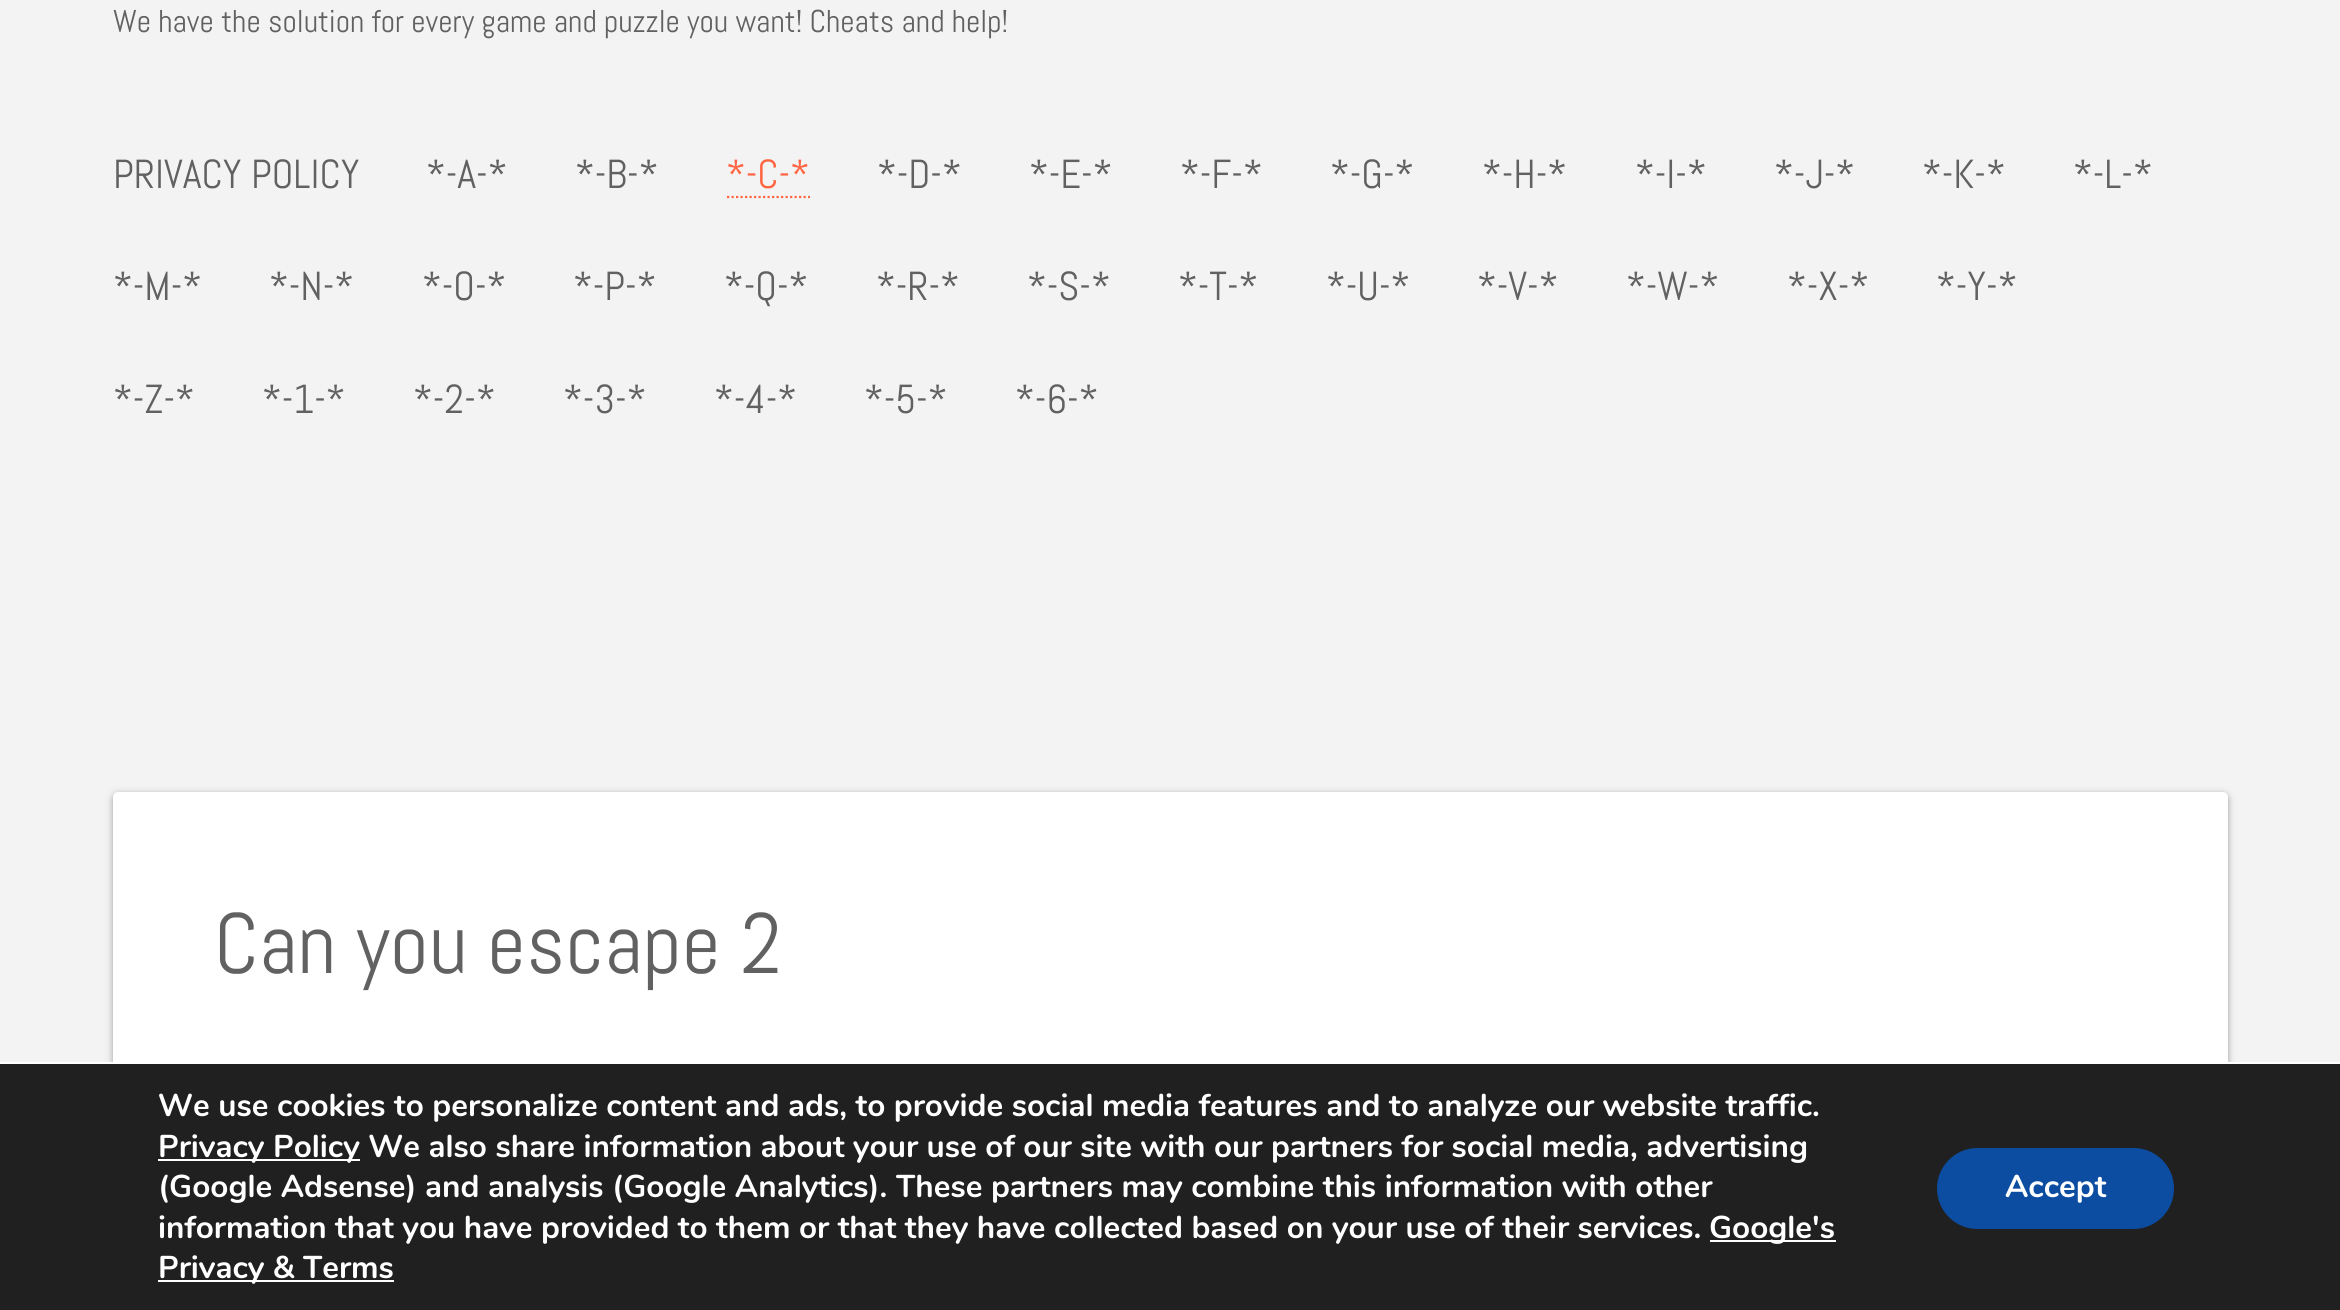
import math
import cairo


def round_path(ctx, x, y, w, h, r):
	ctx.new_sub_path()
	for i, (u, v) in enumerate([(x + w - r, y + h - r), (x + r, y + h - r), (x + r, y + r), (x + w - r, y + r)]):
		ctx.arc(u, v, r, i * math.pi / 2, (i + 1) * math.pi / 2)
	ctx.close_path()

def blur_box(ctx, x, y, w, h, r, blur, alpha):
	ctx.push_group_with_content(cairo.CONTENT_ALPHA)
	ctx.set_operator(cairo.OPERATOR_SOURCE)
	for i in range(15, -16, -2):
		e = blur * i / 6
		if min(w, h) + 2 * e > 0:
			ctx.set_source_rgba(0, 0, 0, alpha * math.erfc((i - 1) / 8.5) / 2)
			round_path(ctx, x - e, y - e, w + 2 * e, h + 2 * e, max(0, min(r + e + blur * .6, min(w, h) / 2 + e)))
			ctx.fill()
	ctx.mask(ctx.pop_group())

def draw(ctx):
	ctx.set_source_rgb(0.953, 0.953, 0.953)
	ctx.paint()
	ctx.select_font_face('Abel')
	ctx.set_font_size(31.5)
	ctx.set_source_rgb(0.38, 0.38, 0.38)
	ctx.move_to(113, 32)
	ctx.show_text('We have the solution for every game and puzzle you want! Cheats and help!')
	ctx.set_font_size(40.5)
	for x, y, s in [
		(113, 188, 'PRIVACY POLICY'),
		(426, 188, '*-A-*'),
		(575, 188, '*-B-*'),
	]:
		ctx.move_to(x, y)
		ctx.show_text(s)
	ctx.new_path()
	ctx.move_to(727, 197)
	ctx.line_to(810, 197)
	ctx.set_source_rgb(1, 0.4, 0.267)
	ctx.set_line_width(2.2)
	ctx.set_dash([2.25, 2.25])
	ctx.stroke()
	ctx.move_to(726, 188)
	ctx.show_text('*-C-*')
	ctx.set_source_rgb(0.38, 0.38, 0.38)
	for x, y, s in [
		(877, 188, '*-D-*'),
		(1029, 188, '*-E-*'),
		(1180, 188, '*-F-*'),
		(1330, 188, '*-G-*'),
		(1482, 188, '*-H-*'),
		(1635, 188, '*-I-*'),
		(1774, 188, '*-J-*'),
		(1922, 188, '*-K-*'),
		(2073, 188, '*-L-*'),
		(113, 300, '*-M-*'),
		(269, 300, '*-N-*'),
		(422, 300, '*-O-*'),
		(573, 300, '*-P-*'),
		(724, 300, '*-Q-*'),
		(876, 300, '*-R-*'),
		(1027, 300, '*-S-*'),
		(1178, 300, '*-T-*'),
		(1326, 300, '*-U-*'),
		(1477, 300, '*-V-*'),
		(1626, 300, '*-W-*'),
		(1787, 300, '*-X-*'),
		(1936, 300, '*-Y-*'),
		(113, 413, '*-Z-*'),
		(262, 413, '*-1-*'),
		(413, 413, '*-2-*'),
		(563, 413, '*-3-*'),
		(714, 413, '*-4-*'),
		(864, 413, '*-5-*'),
		(1015, 413, '*-6-*'),
	]:
		ctx.move_to(x, y)
		ctx.show_text(s)
	ctx.set_source_rgb(0.133, 0.098, 0.098)
	blur_box(ctx, 113, 794, 2115, 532, 5, 3.5, 0.4)
	ctx.set_source_rgb(1, 1, 1)
	round_path(ctx, 113, 792, 2115, 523, 5)
	ctx.fill()
	ctx.set_font_size(85.5)
	ctx.set_source_rgb(0.38, 0.38, 0.38)
	ctx.move_to(214, 973)
	ctx.show_text('Can you escape 2')
	ctx.set_source_rgb(0.125, 0.125, 0.125)
	ctx.rectangle(0, 1064, 2340, 246)
	ctx.fill()
	ctx.set_source_rgb(1, 1, 1)
	ctx.rectangle(0, 1062, 2340, 2)
	ctx.fill()
	ctx.select_font_face('Nunito', cairo.FONT_SLANT_NORMAL, cairo.FONT_WEIGHT_BOLD)
	ctx.set_font_size(31.5)
	ctx.move_to(158, 1116)
	ctx.show_text('We use cookies to personalize content and ads, to provide social media features and to analyze our website traffic.')
	ctx.rectangle(158, 1159, 202, 2)
	ctx.fill()
	for x, y, s in [
		(158, 1157, 'Privacy Policy We also share information about your use of our site with our partners for social media, advertising'),
		(158, 1197, '(Google Adsense) and analysis (Google Analytics). These partners may combine this information with other'),
		(158, 1238, 'information that you have provided to them or that they have collected based on your use of their services.'),
	]:
		ctx.move_to(x, y)
		ctx.show_text(s)
	ctx.rectangle(1710, 1240, 126, 2)
	ctx.fill()
	ctx.move_to(1709, 1238)
	ctx.show_text('Google\'s')
	ctx.rectangle(158, 1280, 236, 2)
	ctx.fill()
	ctx.move_to(158, 1278)
	ctx.show_text('Privacy & Terms')
	ctx.set_source_rgb(0.047, 0.302, 0.635)
	round_path(ctx, 1937, 1148, 237, 81, 40.5)
	ctx.fill()
	ctx.set_source_rgb(1, 1, 1)
	ctx.move_to(2005, 1197)
	ctx.show_text('Accept')


surface = cairo.ImageSurface(cairo.FORMAT_RGB24, 2340, 1310)
ctx = cairo.Context(surface)
options = cairo.FontOptions()
options.set_hint_metrics(cairo.HINT_METRICS_OFF)
options.set_hint_style(cairo.HINT_STYLE_NONE)
ctx.set_font_options(options)
ctx.set_miter_limit(4)
draw(ctx)
surface.write_to_png('image.png')
